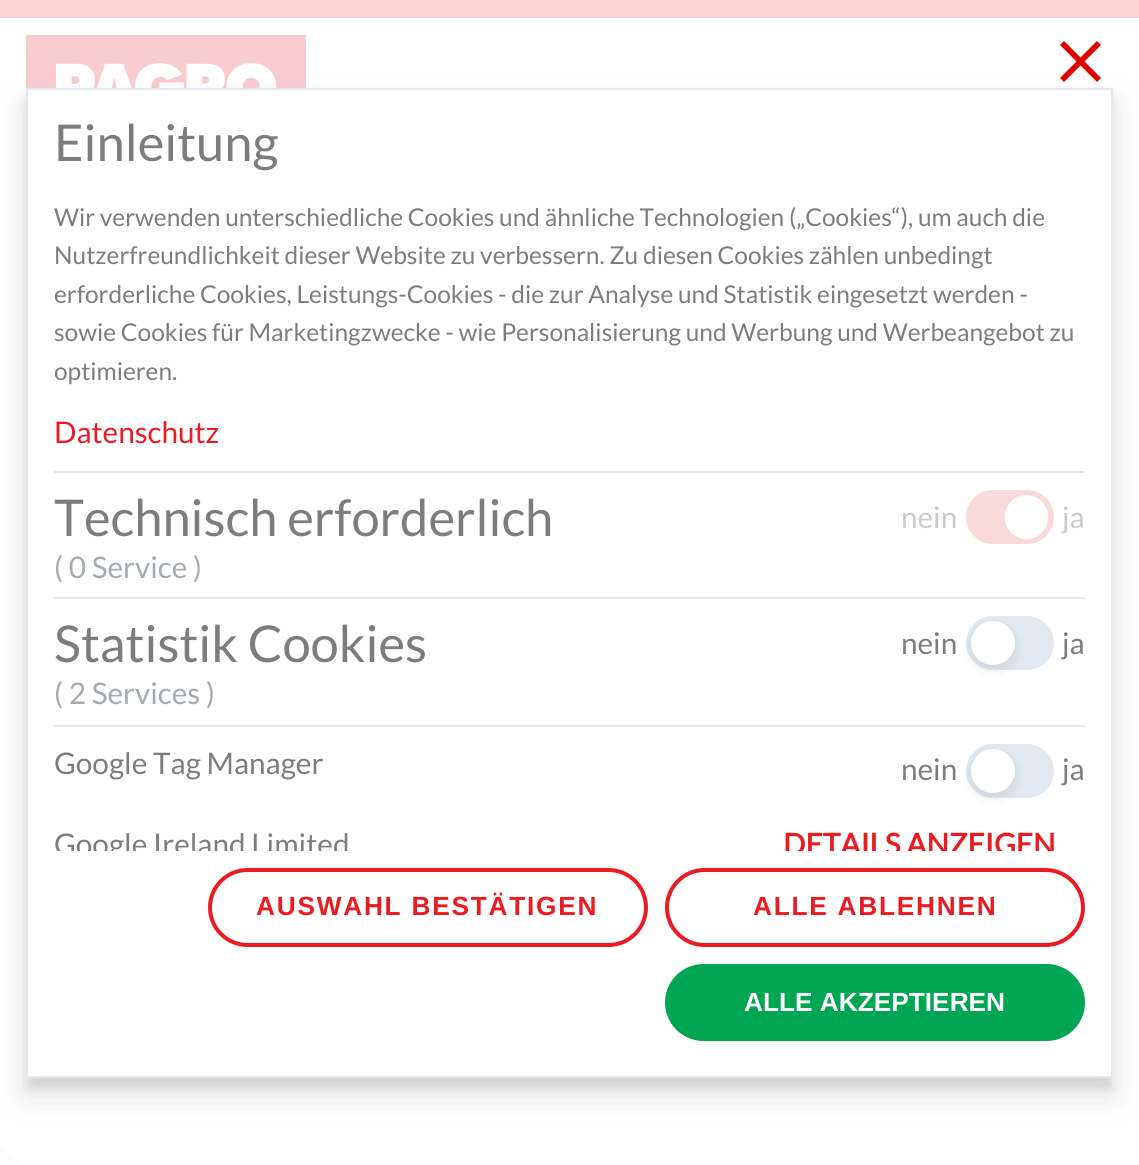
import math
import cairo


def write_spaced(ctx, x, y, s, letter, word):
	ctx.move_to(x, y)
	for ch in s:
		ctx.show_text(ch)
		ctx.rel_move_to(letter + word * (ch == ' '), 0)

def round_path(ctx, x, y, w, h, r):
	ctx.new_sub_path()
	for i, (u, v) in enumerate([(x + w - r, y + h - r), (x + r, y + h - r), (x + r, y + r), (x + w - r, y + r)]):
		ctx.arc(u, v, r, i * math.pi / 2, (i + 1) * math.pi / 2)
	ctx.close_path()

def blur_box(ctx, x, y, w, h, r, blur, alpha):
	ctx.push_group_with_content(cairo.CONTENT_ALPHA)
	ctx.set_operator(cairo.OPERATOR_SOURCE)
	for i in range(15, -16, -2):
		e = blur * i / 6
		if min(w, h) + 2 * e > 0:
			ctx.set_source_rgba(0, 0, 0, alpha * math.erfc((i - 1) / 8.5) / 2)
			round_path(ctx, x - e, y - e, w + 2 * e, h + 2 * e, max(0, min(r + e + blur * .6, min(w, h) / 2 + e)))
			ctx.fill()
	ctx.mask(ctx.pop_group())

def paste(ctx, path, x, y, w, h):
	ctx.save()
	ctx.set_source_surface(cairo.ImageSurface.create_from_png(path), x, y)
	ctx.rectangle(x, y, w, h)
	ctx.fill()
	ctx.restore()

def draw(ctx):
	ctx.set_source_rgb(1, 1, 1)
	ctx.paint()
	ctx.set_source_rgb(0.984, 0.82, 0.827)
	ctx.rectangle(0, 0, 1139, 18)
	ctx.fill()
	paste(ctx, 'media/1.png', 26, 35, 280, 53)
	paste(ctx, 'media/2.png', 0, 1147, 21, 18)
	ctx.set_source_rgb(0, 0, 0)
	blur_box(ctx, 26, 98, 1087, 991, 0, 5, 0.1)
	blur_box(ctx, 26, 105, 1087, 991, 0, 17.5, 0.1)
	ctx.set_source_rgb(1, 1, 1)
	ctx.rectangle(27, 89, 1085, 988)
	ctx.fill_preserve()
	ctx.set_source_rgb(0.882, 0.91, 0.941)
	ctx.stroke()
	ctx.set_source_rgb(0.875, 0, 0)
	ctx.new_path()
	ctx.move_to(1097, 41)
	ctx.line_to(1101, 45)
	ctx.line_to(1064, 82)
	ctx.line_to(1060, 78)
	ctx.close_path()
	ctx.fill()
	ctx.new_path()
	ctx.move_to(1060, 45)
	ctx.line_to(1064, 41)
	ctx.line_to(1101, 78)
	ctx.line_to(1097, 82)
	ctx.close_path()
	ctx.fill()
	ctx.select_font_face('Lato')
	ctx.set_font_size(50.75)
	ctx.set_source_rgb(0.49, 0.49, 0.49)
	ctx.move_to(54, 161)
	ctx.show_text('Einleitung')
	ctx.set_font_size(24.5)
	for x, y, s in [
		(54, 226, 'Wir verwenden unterschiedliche Cookies und ähnliche Technologien („Cookies“), um auch die'),
		(54, 264, 'Nutzerfreundlichkeit dieser Website zu verbessern. Zu diesen Cookies zählen unbedingt'),
		(54, 303, 'erforderliche Cookies, Leistungs-Cookies - die zur Analyse und Statistik eingesetzt werden -'),
		(54, 341, 'sowie Cookies für Marketingzwecke - wie Personalisierung und Werbung und Werbeangebot zu'),
		(54, 380, 'optimieren.'),
	]:
		ctx.move_to(x, y)
		ctx.show_text(s)
	ctx.set_font_size(29.75)
	ctx.set_source_rgb(0.925, 0.106, 0.133)
	ctx.move_to(54, 443)
	ctx.show_text('Datenschutz')
	ctx.set_source_rgb(0.882, 0.91, 0.941)
	ctx.rectangle(54, 471, 1031, 2)
	ctx.fill()
	ctx.rectangle(54, 597, 1031, 2)
	ctx.fill()
	ctx.set_font_size(50.75)
	ctx.set_source_rgb(0.49, 0.49, 0.49)
	ctx.move_to(54, 536)
	ctx.show_text('Technisch erforderlich')
	ctx.set_font_size(29.75)
	ctx.set_source_rgb(0.647, 0.675, 0.69)
	ctx.move_to(54, 578)
	ctx.show_text('( 0 Service )')
	ctx.set_source_rgb(0.796, 0.796, 0.796)
	ctx.move_to(901, 528)
	ctx.show_text('nein')
	ctx.set_source_rgb(0.976, 0.851, 0.855)
	round_path(ctx, 966, 490, 88, 54, 27)
	ctx.fill()
	ctx.set_source_rgb(1, 1, 1)
	round_path(ctx, 1005, 495, 43, 44, 21.5)
	ctx.fill()
	ctx.set_source_rgb(0.796, 0.796, 0.796)
	ctx.move_to(1062, 528)
	ctx.show_text('ja')
	ctx.set_font_size(50.75)
	ctx.set_source_rgb(0.49, 0.49, 0.49)
	ctx.move_to(54, 662)
	ctx.show_text('Statistik Cookies')
	ctx.set_font_size(29.75)
	ctx.set_source_rgb(0.647, 0.675, 0.69)
	ctx.move_to(54, 704)
	ctx.show_text('( 2 Services )')
	ctx.set_source_rgb(0.49, 0.49, 0.49)
	ctx.move_to(901, 654)
	ctx.show_text('nein')
	ctx.set_source_rgb(0.882, 0.91, 0.941)
	round_path(ctx, 966, 616, 88, 54, 27)
	ctx.fill()
	ctx.set_source_rgb(0, 0, 0)
	blur_box(ctx, 971, 627, 44, 43, 21.5, 5, 0.05)
	blur_box(ctx, 971, 627, 44, 43, 21.5, 5, 0.05)
	ctx.set_source_rgb(1, 1, 1)
	ctx.arc(993, 643, 22, 0, 2 * math.pi)
	ctx.fill()
	ctx.set_source_rgb(0.49, 0.49, 0.49)
	ctx.move_to(1062, 654)
	ctx.show_text('ja')
	ctx.set_source_rgb(0.882, 0.91, 0.941)
	ctx.rectangle(54, 725, 1031, 2)
	ctx.fill()
	ctx.set_source_rgb(0.49, 0.49, 0.49)
	ctx.move_to(54, 774)
	ctx.show_text('Google Tag Manager')
	ctx.move_to(901, 780)
	ctx.show_text('nein')
	ctx.set_source_rgb(0.882, 0.91, 0.941)
	round_path(ctx, 966, 744, 88, 54, 27)
	ctx.fill()
	ctx.set_source_rgb(0, 0, 0)
	blur_box(ctx, 971, 754, 44, 44, 22, 5, 0.05)
	blur_box(ctx, 971, 754, 44, 44, 22, 5, 0.05)
	ctx.set_source_rgb(1, 1, 1)
	ctx.arc(993, 771, 22, 0, 2 * math.pi)
	ctx.fill()
	ctx.set_source_rgb(0.49, 0.49, 0.49)
	ctx.move_to(1062, 780)
	ctx.show_text('ja')
	ctx.save()
	ctx.rectangle(54, 116, 1031, 735)
	ctx.clip()
	ctx.move_to(54, 855)
	ctx.show_text('Google Ireland Limited')
	ctx.select_font_face('Lato', cairo.FONT_SLANT_NORMAL, cairo.FONT_WEIGHT_BOLD)
	ctx.set_source_rgb(0.925, 0.106, 0.133)
	ctx.move_to(783, 855)
	ctx.show_text('DETAILS ANZEIGEN')
	ctx.restore()
	round_path(ctx, 210, 870, 436, 75, 37.5)
	ctx.set_source_rgb(0.925, 0.106, 0.133)
	ctx.set_line_width(4)
	ctx.stroke()
	ctx.select_font_face('Liberation Sans', cairo.FONT_SLANT_NORMAL, cairo.FONT_WEIGHT_BOLD)
	ctx.set_font_size(26.25)
	write_spaced(ctx, 256, 915, 'AUSWAHL BESTÄTIGEN', 1.75, 0)
	round_path(ctx, 667, 870, 416, 75, 37.5)
	ctx.stroke()
	write_spaced(ctx, 753, 915, 'ALLE ABLEHNEN', 1.75, 0)
	ctx.set_source_rgb(0, 0.651, 0.318)
	round_path(ctx, 666, 965, 418, 75, 37.5)
	ctx.fill_preserve()
	ctx.set_line_width(2)
	ctx.stroke()
	ctx.set_source_rgb(1, 1, 1)
	ctx.move_to(744, 1011)
	ctx.show_text('ALLE AKZEPTIEREN')


surface = cairo.ImageSurface(cairo.FORMAT_RGB24, 1139, 1165)
ctx = cairo.Context(surface)
options = cairo.FontOptions()
options.set_hint_metrics(cairo.HINT_METRICS_OFF)
options.set_hint_style(cairo.HINT_STYLE_NONE)
ctx.set_font_options(options)
ctx.set_miter_limit(4)
draw(ctx)
surface.write_to_png('image.png')
